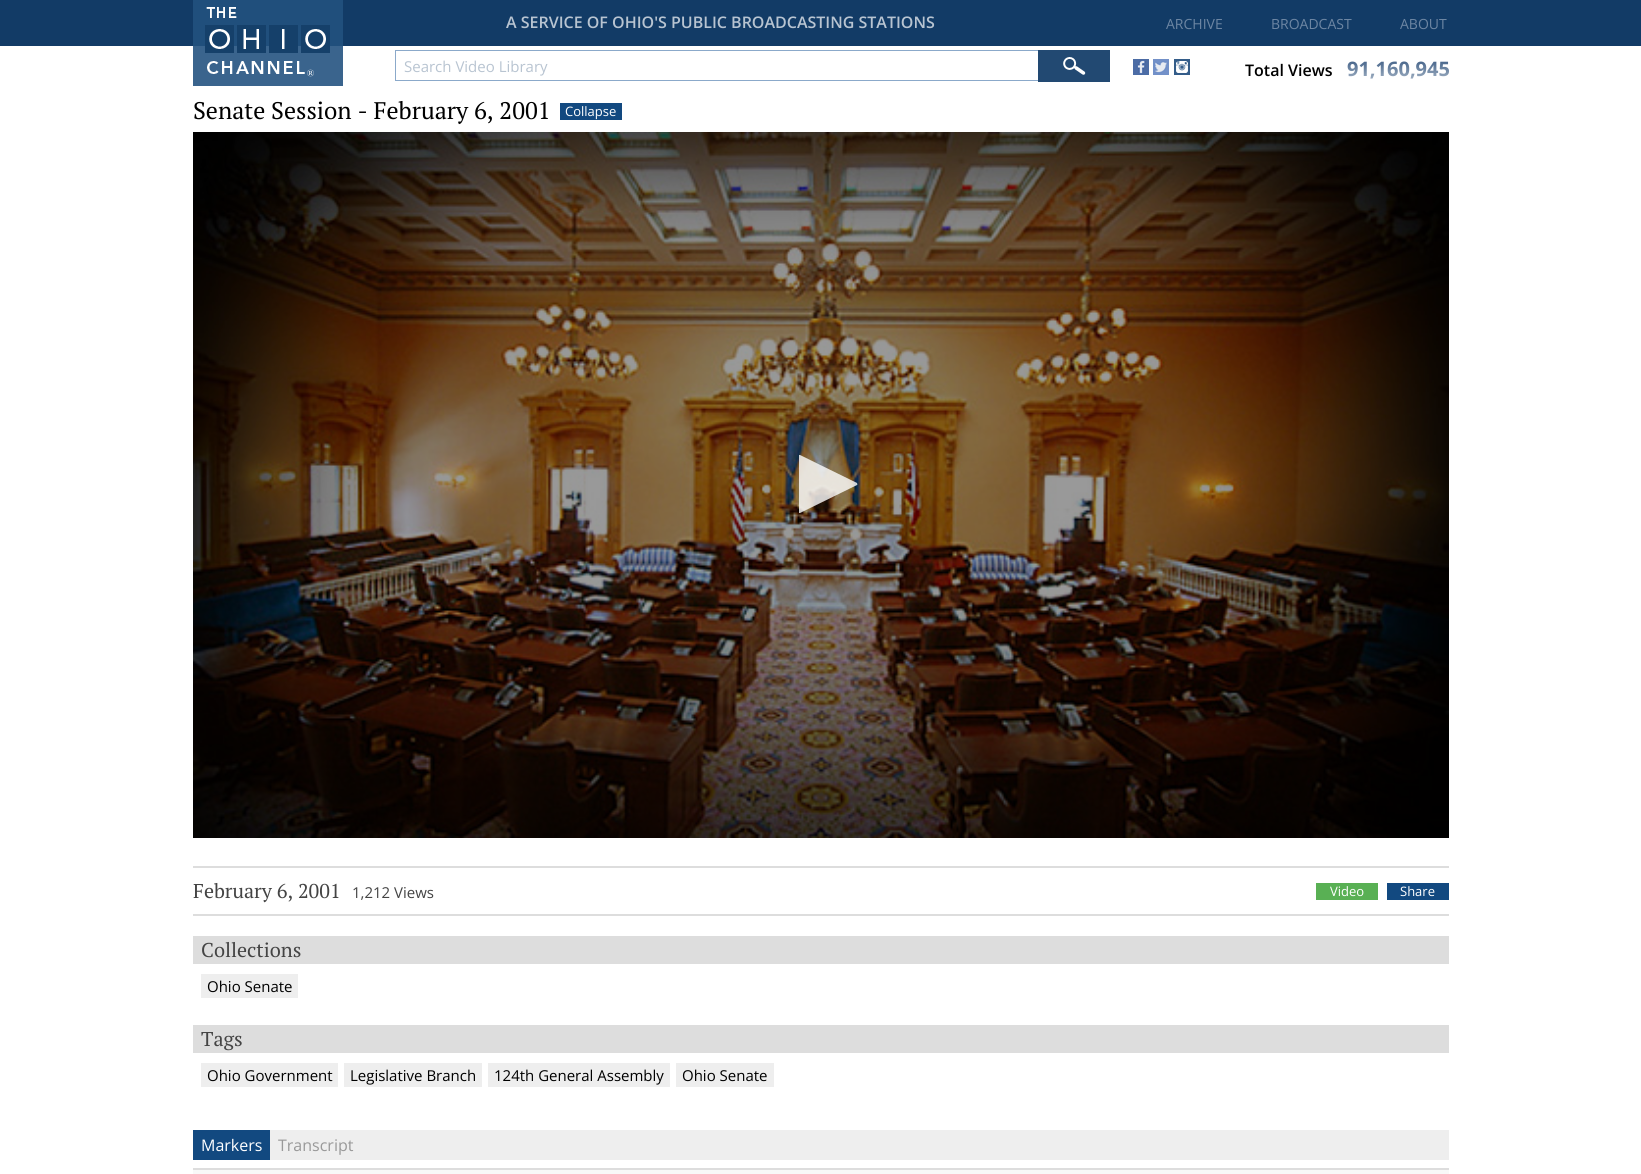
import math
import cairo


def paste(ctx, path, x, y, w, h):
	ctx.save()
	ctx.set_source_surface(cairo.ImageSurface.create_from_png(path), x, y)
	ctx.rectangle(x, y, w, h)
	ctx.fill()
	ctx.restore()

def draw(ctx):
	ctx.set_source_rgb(1, 1, 1)
	ctx.paint()
	ctx.set_source_rgb(0.227, 0.392, 0.553)
	ctx.rectangle(193, 46, 150, 40)
	ctx.fill()
	ctx.set_source_rgb(0.071, 0.231, 0.4)
	ctx.rectangle(0, 0, 1641, 46)
	ctx.fill()
	ctx.set_source_rgb(0.125, 0.31, 0.486)
	ctx.rectangle(193, 0, 150, 46)
	ctx.fill()
	paste(ctx, 'media/1.png', 205, 7, 125, 70)
	ctx.select_font_face('Open Sans SemiBold')
	ctx.set_font_size(16)
	ctx.set_source_rgb(0.722, 0.769, 0.82)
	ctx.move_to(506, 28)
	ctx.show_text('A SERVICE OF OHIO\'S PUBLIC BROADCASTING STATIONS')
	ctx.select_font_face('Open Sans')
	ctx.set_font_size(14)
	ctx.set_source_rgb(0.427, 0.525, 0.639)
	for x, y, s in [
		(1166, 29, 'ARCHIVE'),
		(1271, 29, 'BROADCAST'),
		(1400, 29, 'ABOUT'),
	]:
		ctx.move_to(x, y)
		ctx.show_text(s)
	ctx.rectangle(395.5, 50.5, 714, 30)
	ctx.set_source_rgb(0.545, 0.663, 0.792)
	ctx.set_line_width(1)
	ctx.stroke()
	ctx.set_font_size(15)
	ctx.set_source_rgb(0.722, 0.769, 0.82)
	ctx.move_to(404, 72)
	ctx.show_text('Search Video Library')
	ctx.set_source_rgb(0.133, 0.286, 0.447)
	ctx.rectangle(1038, 50, 72, 32)
	ctx.fill()
	paste(ctx, 'media/2.png', 1063, 57, 23, 18)
	paste(ctx, 'media/3.png', 1133, 59, 16, 16)
	paste(ctx, 'media/4.png', 1153, 59, 16, 16)
	paste(ctx, 'media/5.png', 1174, 59, 16, 16)
	ctx.select_font_face('Open Sans SemiBold')
	ctx.set_font_size(16)
	ctx.set_source_rgb(0, 0, 0)
	ctx.move_to(1245, 76)
	ctx.show_text('Total Views')
	ctx.select_font_face('Open Sans', cairo.FONT_SLANT_NORMAL, cairo.FONT_WEIGHT_BOLD)
	ctx.set_font_size(20)
	gradient = cairo.LinearGradient(1398, 55, 1398, 82)
	gradient.add_color_stop_rgba(0, 0.169, 0.306, 0.475, 1)
	gradient.add_color_stop_rgba(1, 0.667, 0.722, 0.788, 1)
	ctx.set_source(gradient)
	ctx.move_to(1347, 76)
	ctx.show_text('91,160,945')
	ctx.select_font_face('PT Serif')
	ctx.set_font_size(24)
	ctx.set_source_rgb(0, 0, 0)
	ctx.move_to(193, 119)
	ctx.show_text('Senate Session - February 6, 2001')
	ctx.set_source_rgb(0.071, 0.286, 0.502)
	ctx.rectangle(560, 103, 62, 17)
	ctx.fill()
	ctx.select_font_face('Open Sans')
	ctx.set_font_size(13)
	ctx.set_source_rgb(1, 1, 1)
	ctx.move_to(565, 116)
	ctx.show_text('Collapse')
	paste(ctx, 'media/6.png', 193, 132, 1256, 706)
	ctx.set_source_rgba(1, 1, 1, 0.8)
	ctx.new_path()
	ctx.move_to(800, 513)
	ctx.line_to(799, 513)
	ctx.line_to(799, 455)
	ctx.line_to(800, 455)
	ctx.line_to(857, 483)
	ctx.curve_to(857, 484, 858, 484, 857, 485)
	ctx.close_path()
	ctx.fill()
	ctx.set_source_rgb(0.867, 0.867, 0.867)
	ctx.rectangle(193, 866, 1256, 2)
	ctx.fill()
	ctx.rectangle(193, 914, 1256, 2)
	ctx.fill()
	ctx.select_font_face('PT Serif')
	ctx.set_font_size(20)
	ctx.set_source_rgb(0.267, 0.267, 0.267)
	ctx.move_to(193, 898)
	ctx.show_text('February 6, 2001')
	ctx.select_font_face('Open Sans')
	ctx.set_font_size(15)
	ctx.move_to(352, 898)
	ctx.show_text('1,212 Views')
	ctx.set_source_rgb(0.349, 0.69, 0.329)
	ctx.rectangle(1316, 883, 62, 17)
	ctx.fill()
	ctx.set_font_size(13)
	ctx.set_source_rgb(1, 1, 1)
	ctx.move_to(1330, 896)
	ctx.show_text('Video')
	ctx.set_source_rgb(0.071, 0.286, 0.502)
	ctx.rectangle(1387, 883, 62, 17)
	ctx.fill()
	ctx.set_source_rgb(1, 1, 1)
	ctx.move_to(1400, 896)
	ctx.show_text('Share')
	ctx.set_source_rgb(0.867, 0.867, 0.867)
	ctx.rectangle(193, 936, 1256, 28)
	ctx.fill()
	ctx.select_font_face('PT Serif')
	ctx.set_font_size(20)
	ctx.set_source_rgb(0.267, 0.267, 0.267)
	ctx.move_to(201, 957)
	ctx.show_text('Collections')
	ctx.set_source_rgb(0.933, 0.933, 0.933)
	ctx.rectangle(201, 974, 97, 24)
	ctx.fill()
	ctx.select_font_face('Open Sans')
	ctx.set_font_size(15)
	ctx.set_source_rgb(0, 0, 0)
	ctx.move_to(207, 992)
	ctx.show_text('Ohio Senate')
	ctx.set_source_rgb(0.867, 0.867, 0.867)
	ctx.rectangle(193, 1025, 1256, 28)
	ctx.fill()
	ctx.select_font_face('PT Serif')
	ctx.set_font_size(20)
	ctx.set_source_rgb(0.267, 0.267, 0.267)
	ctx.move_to(201, 1046)
	ctx.show_text('Tags')
	ctx.set_source_rgb(0.933, 0.933, 0.933)
	ctx.rectangle(201, 1063, 137, 24)
	ctx.fill()
	ctx.select_font_face('Open Sans')
	ctx.set_font_size(15)
	ctx.set_source_rgb(0, 0, 0)
	ctx.move_to(207, 1081)
	ctx.show_text('Ohio Government')
	ctx.set_source_rgb(0.933, 0.933, 0.933)
	ctx.rectangle(344, 1063, 138, 24)
	ctx.fill()
	ctx.set_source_rgb(0, 0, 0)
	ctx.move_to(350, 1081)
	ctx.show_text('Legislative Branch')
	ctx.set_source_rgb(0.933, 0.933, 0.933)
	ctx.rectangle(488, 1063, 182, 24)
	ctx.fill()
	ctx.set_source_rgb(0, 0, 0)
	ctx.move_to(494, 1081)
	ctx.show_text('124th General Assembly')
	ctx.set_source_rgb(0.933, 0.933, 0.933)
	ctx.rectangle(676, 1063, 98, 24)
	ctx.fill()
	ctx.set_source_rgb(0, 0, 0)
	ctx.move_to(682, 1081)
	ctx.show_text('Ohio Senate')
	ctx.set_source_rgb(0.933, 0.933, 0.933)
	ctx.rectangle(270, 1130, 1179, 30)
	ctx.fill()
	ctx.set_source_rgb(0.071, 0.286, 0.502)
	ctx.rectangle(193, 1130, 77, 30)
	ctx.fill()
	ctx.set_font_size(16)
	ctx.set_source_rgb(1, 1, 1)
	ctx.move_to(201, 1151)
	ctx.show_text('Markers')
	ctx.set_source_rgb(0.6, 0.6, 0.6)
	ctx.move_to(278, 1151)
	ctx.show_text('Transcript')
	ctx.set_source_rgb(0.867, 0.867, 0.867)
	ctx.rectangle(193, 1168, 1256, 2)
	ctx.fill()
	ctx.set_source_rgb(0.969, 0.969, 0.969)
	ctx.rectangle(193, 1170, 1256, 4)
	ctx.fill()


surface = cairo.ImageSurface(cairo.FORMAT_RGB24, 1641, 1174)
ctx = cairo.Context(surface)
options = cairo.FontOptions()
options.set_hint_metrics(cairo.HINT_METRICS_OFF)
options.set_hint_style(cairo.HINT_STYLE_NONE)
ctx.set_font_options(options)
ctx.set_miter_limit(4)
draw(ctx)
surface.write_to_png('image.png')
